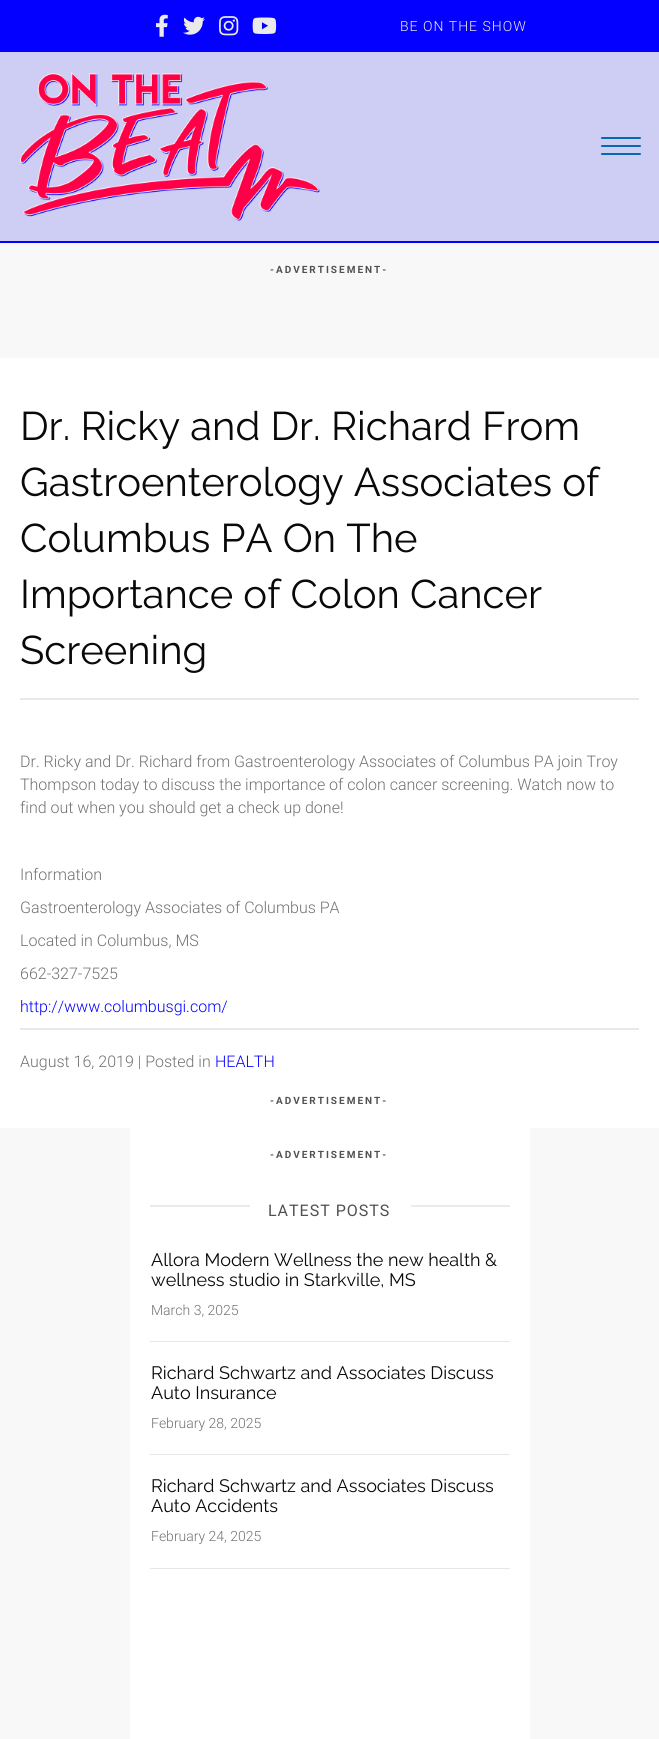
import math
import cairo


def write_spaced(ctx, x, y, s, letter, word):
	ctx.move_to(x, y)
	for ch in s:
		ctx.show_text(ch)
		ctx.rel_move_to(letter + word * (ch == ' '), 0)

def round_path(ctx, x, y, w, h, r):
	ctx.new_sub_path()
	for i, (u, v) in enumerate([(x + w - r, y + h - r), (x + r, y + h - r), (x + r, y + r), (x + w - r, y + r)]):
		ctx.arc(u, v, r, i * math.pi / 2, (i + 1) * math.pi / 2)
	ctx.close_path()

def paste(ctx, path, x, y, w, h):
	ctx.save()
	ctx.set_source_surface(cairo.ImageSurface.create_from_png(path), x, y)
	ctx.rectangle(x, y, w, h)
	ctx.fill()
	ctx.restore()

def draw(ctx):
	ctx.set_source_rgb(0.016, 0, 1)
	ctx.paint()
	paste(ctx, 'media/1.png', 156, 14, 12, 23)
	paste(ctx, 'media/2.png', 183, 16, 22, 19)
	paste(ctx, 'media/3.png', 219, 16, 20, 20)
	paste(ctx, 'media/4.png', 252, 17, 25, 17)
	ctx.select_font_face('Roboto Light')
	ctx.set_font_size(14)
	ctx.set_source_rgb(0.918, 0.918, 0.918)
	write_spaced(ctx, 400, 31, 'BE ON THE SHOW', 1, 0)
	ctx.set_source_rgb(0.808, 0.808, 0.957)
	ctx.rectangle(0, 52, 659, 189)
	ctx.fill()
	paste(ctx, 'media/5.png', 20, 72, 300, 149)
	ctx.set_source_rgb(0.024, 0.416, 0.69)
	round_path(ctx, 601, 145, 40, 2, 1)
	ctx.fill()
	round_path(ctx, 601, 137, 40, 2, 1)
	ctx.fill()
	round_path(ctx, 601, 153, 40, 2, 1)
	ctx.fill()
	ctx.set_source_rgb(0.969, 0.969, 0.969)
	ctx.rectangle(0, 243, 659, 1496)
	ctx.fill()
	ctx.select_font_face('Roboto', cairo.FONT_SLANT_NORMAL, cairo.FONT_WEIGHT_BOLD)
	ctx.set_font_size(10)
	ctx.set_source_rgb(0.318, 0.318, 0.318)
	write_spaced(ctx, 270, 273, '-ADVERTISEMENT-', 2, 0)
	ctx.set_source_rgb(1, 1, 1)
	ctx.rectangle(0, 358, 659, 770)
	ctx.fill()
	ctx.select_font_face('Raleway Thin')
	ctx.set_font_size(40)
	ctx.set_source_rgb(0.039, 0.039, 0.039)
	for x, y, s in [
		(20, 440, 'Dr. Ricky and Dr. Richard From'),
		(20, 496, 'Gastroenterology Associates of'),
		(20, 552, 'Columbus PA On The'),
		(20, 608, 'Importance of Colon Cancer'),
		(20, 664, 'Screening'),
	]:
		ctx.move_to(x, y)
		ctx.show_text(s)
	ctx.set_source_rgb(0.91, 0.91, 0.91)
	ctx.rectangle(20, 698, 619, 2)
	ctx.fill()
	ctx.select_font_face('Roboto Light')
	ctx.set_font_size(16)
	ctx.set_source_rgb(0.447, 0.447, 0.447)
	for x, y, s in [
		(20, 767, 'Dr. Ricky and Dr. Richard from Gastroenterology Associates of Columbus PA join Troy'),
		(20, 790, 'Thompson today to discuss the importance of colon cancer screening. Watch now to'),
		(20, 813, 'find out when you should get a check up done!'),
		(20, 880, 'Information'),
		(20, 913, 'Gastroenterology Associates of Columbus PA'),
		(20, 946, 'Located in Columbus, MS'),
		(20, 979, '662-327-7525'),
	]:
		ctx.move_to(x, y)
		ctx.show_text(s)
	ctx.set_source_rgb(0.016, 0, 1)
	ctx.move_to(20, 1012)
	ctx.show_text('http://www.columbusgi.com/')
	ctx.set_source_rgb(0.91, 0.91, 0.91)
	ctx.rectangle(20, 1028, 619, 2)
	ctx.fill()
	ctx.set_source_rgb(0.447, 0.447, 0.447)
	ctx.move_to(20, 1067)
	ctx.show_text('August 16, 2019 | Posted in')
	ctx.set_source_rgb(0.016, 0, 1)
	ctx.move_to(215, 1067)
	ctx.show_text('HEALTH')
	ctx.select_font_face('Roboto', cairo.FONT_SLANT_NORMAL, cairo.FONT_WEIGHT_BOLD)
	ctx.set_font_size(10)
	ctx.set_source_rgb(0.318, 0.318, 0.318)
	write_spaced(ctx, 270, 1104, '-ADVERTISEMENT-', 2, 0)
	ctx.set_source_rgb(1, 1, 1)
	ctx.rectangle(130, 1128, 400, 611)
	ctx.fill()
	ctx.set_source_rgb(0.318, 0.318, 0.318)
	write_spaced(ctx, 270, 1158, '-ADVERTISEMENT-', 2, 0)
	ctx.set_source_rgb(0.918, 0.918, 0.918)
	ctx.rectangle(150, 1205, 100, 2)
	ctx.fill()
	ctx.select_font_face('Roboto')
	ctx.set_font_size(16)
	ctx.set_source_rgb(0.318, 0.318, 0.318)
	write_spaced(ctx, 268, 1216, 'LATEST POSTS', 1, 0)
	ctx.set_source_rgb(0.918, 0.918, 0.918)
	ctx.rectangle(411, 1205, 99, 2)
	ctx.fill()
	ctx.set_source_rgb(0.902, 0.902, 0.902)
	ctx.rectangle(150, 1341, 360, 1)
	ctx.fill()
	ctx.select_font_face('Raleway Thin')
	ctx.set_font_size(18)
	ctx.set_source_rgb(0.039, 0.039, 0.039)
	ctx.move_to(151, 1266)
	ctx.show_text('Allora Modern Wellness the new health &')
	ctx.move_to(151, 1286)
	ctx.show_text('wellness studio in Starkville, MS')
	ctx.select_font_face('Roboto Light')
	ctx.set_font_size(14)
	ctx.set_source_rgb(0.447, 0.447, 0.447)
	ctx.move_to(151, 1315)
	ctx.show_text('March 3, 2025')
	ctx.set_source_rgb(0.902, 0.902, 0.902)
	ctx.rectangle(150, 1454, 360, 1)
	ctx.fill()
	ctx.select_font_face('Raleway Thin')
	ctx.set_font_size(18)
	ctx.set_source_rgb(0.039, 0.039, 0.039)
	ctx.move_to(151, 1379)
	ctx.show_text('Richard Schwartz and Associates Discuss')
	ctx.move_to(151, 1399)
	ctx.show_text('Auto Insurance')
	ctx.select_font_face('Roboto Light')
	ctx.set_font_size(14)
	ctx.set_source_rgb(0.447, 0.447, 0.447)
	ctx.move_to(151, 1428)
	ctx.show_text('February 28, 2025')
	ctx.set_source_rgb(0.902, 0.902, 0.902)
	ctx.rectangle(150, 1568, 360, 1)
	ctx.fill()
	ctx.select_font_face('Raleway Thin')
	ctx.set_font_size(18)
	ctx.set_source_rgb(0.039, 0.039, 0.039)
	ctx.move_to(151, 1492)
	ctx.show_text('Richard Schwartz and Associates Discuss')
	ctx.move_to(151, 1512)
	ctx.show_text('Auto Accidents')
	ctx.select_font_face('Roboto Light')
	ctx.set_font_size(14)
	ctx.set_source_rgb(0.447, 0.447, 0.447)
	ctx.move_to(151, 1541)
	ctx.show_text('February 24, 2025')


surface = cairo.ImageSurface(cairo.FORMAT_RGB24, 659, 1739)
ctx = cairo.Context(surface)
options = cairo.FontOptions()
options.set_hint_metrics(cairo.HINT_METRICS_OFF)
options.set_hint_style(cairo.HINT_STYLE_NONE)
ctx.set_font_options(options)
ctx.set_miter_limit(4)
draw(ctx)
surface.write_to_png('image.png')
